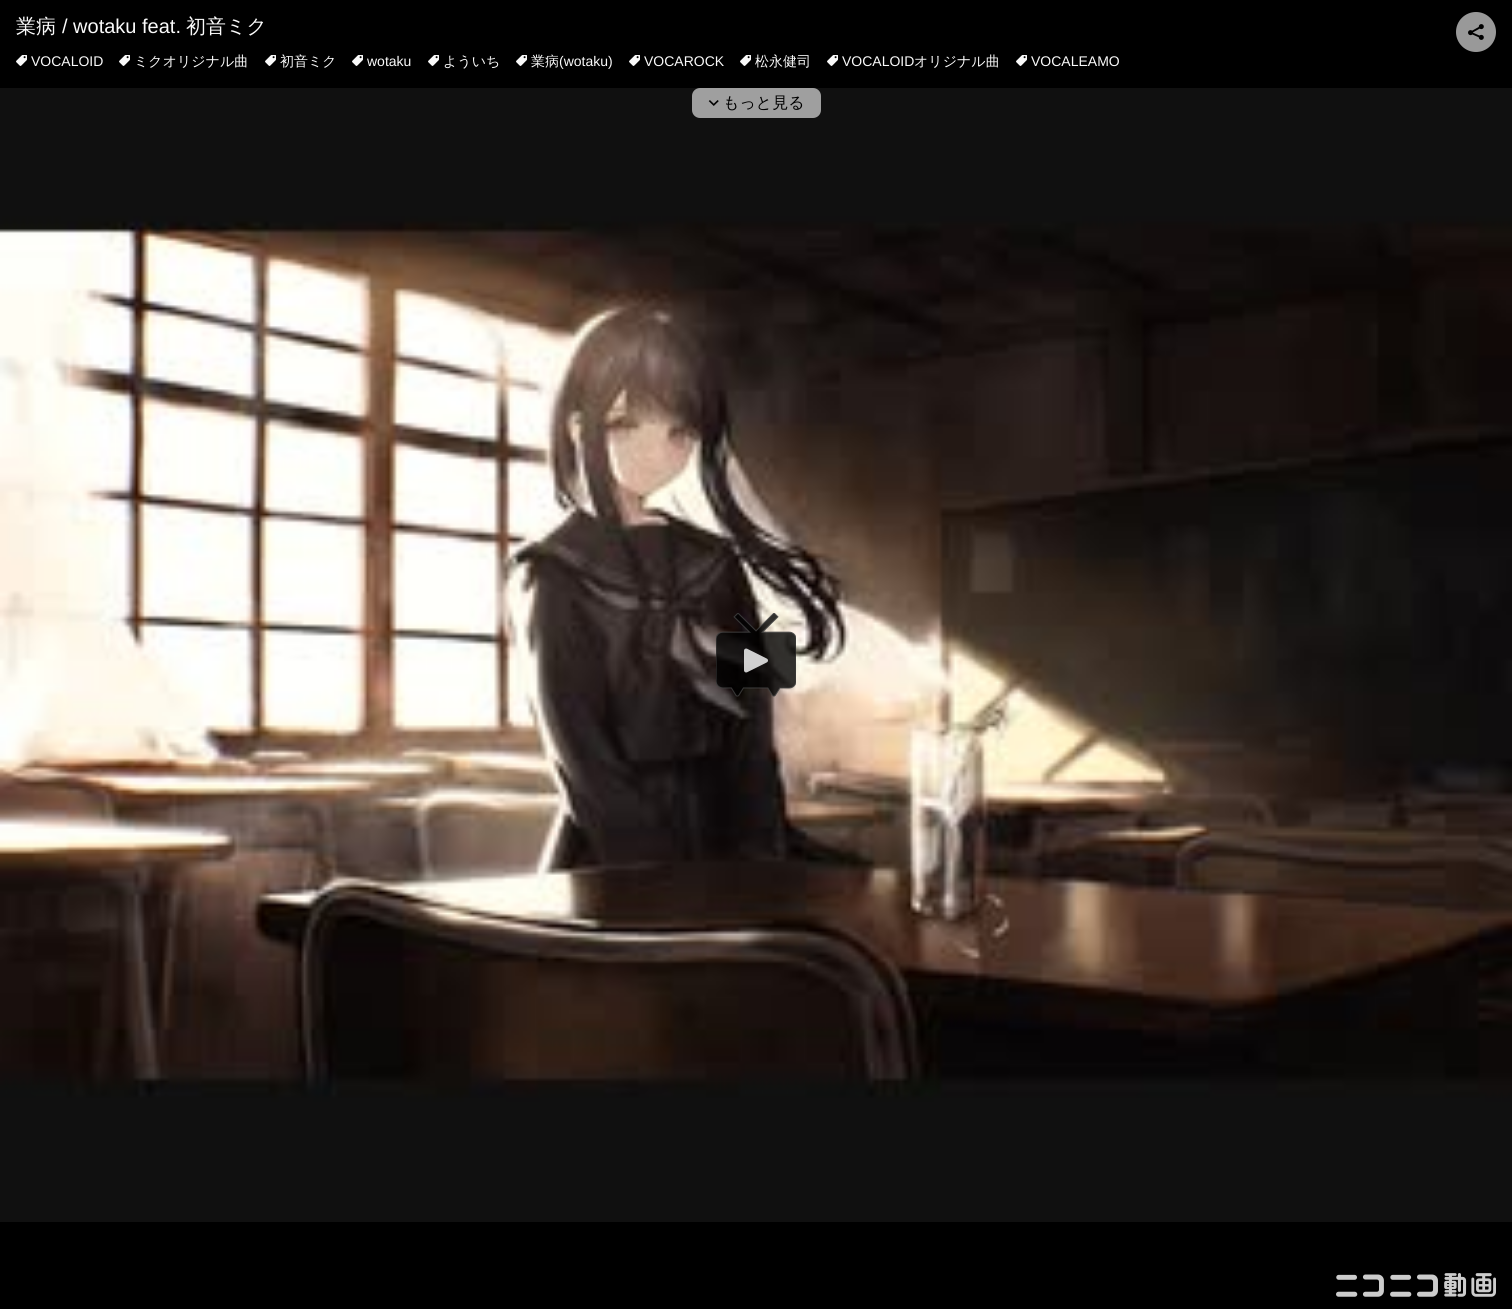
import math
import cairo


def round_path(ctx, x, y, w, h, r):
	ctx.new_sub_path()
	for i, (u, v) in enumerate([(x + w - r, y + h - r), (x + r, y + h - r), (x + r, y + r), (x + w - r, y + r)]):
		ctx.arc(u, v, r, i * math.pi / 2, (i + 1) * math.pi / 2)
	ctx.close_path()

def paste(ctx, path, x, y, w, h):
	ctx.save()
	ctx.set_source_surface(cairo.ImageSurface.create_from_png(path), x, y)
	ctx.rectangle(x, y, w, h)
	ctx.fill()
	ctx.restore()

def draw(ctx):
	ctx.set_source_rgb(0, 0, 0)
	ctx.paint()
	ctx.select_font_face('WenQuanYi Zen Hei Medium')
	ctx.set_font_size(20)
	ctx.set_source_rgb(0.98, 0.98, 0.98)
	ctx.move_to(16, 33)
	ctx.show_text('業病')
	ctx.select_font_face('Liberation Sans')
	ctx.move_to(62, 33)
	ctx.show_text('/ wotaku feat.')
	ctx.select_font_face('WenQuanYi Zen Hei Medium')
	ctx.move_to(186, 33)
	ctx.show_text('初音ミク')
	paste(ctx, 'media/1.png', 16, 55, 11, 11)
	ctx.select_font_face('Liberation Sans')
	ctx.set_font_size(14)
	ctx.move_to(31, 66)
	ctx.show_text('VOCALOID')
	paste(ctx, 'media/1.png', 119, 55, 11, 11)
	ctx.select_font_face('WenQuanYi Zen Hei Medium')
	ctx.move_to(134, 66)
	ctx.show_text('ミクオリジナル曲')
	paste(ctx, 'media/1.png', 265, 55, 11, 11)
	ctx.move_to(280, 66)
	ctx.show_text('初音ミク')
	paste(ctx, 'media/1.png', 352, 55, 11, 11)
	ctx.select_font_face('Liberation Sans')
	ctx.move_to(367, 66)
	ctx.show_text('wotaku')
	paste(ctx, 'media/1.png', 428, 55, 11, 11)
	ctx.select_font_face('WenQuanYi Zen Hei Medium')
	ctx.move_to(443, 66)
	ctx.show_text('よういち')
	paste(ctx, 'media/1.png', 516, 55, 11, 11)
	ctx.move_to(531, 66)
	ctx.show_text('業病')
	ctx.select_font_face('Liberation Sans')
	ctx.move_to(559, 66)
	ctx.show_text('(wotaku)')
	paste(ctx, 'media/1.png', 629, 55, 11, 11)
	ctx.move_to(644, 66)
	ctx.show_text('VOCAROCK')
	paste(ctx, 'media/1.png', 740, 55, 11, 11)
	ctx.select_font_face('WenQuanYi Zen Hei Medium')
	ctx.move_to(755, 66)
	ctx.show_text('松永健司')
	paste(ctx, 'media/1.png', 827, 55, 11, 11)
	ctx.select_font_face('Liberation Sans')
	ctx.move_to(842, 66)
	ctx.show_text('VOCALOID')
	ctx.select_font_face('WenQuanYi Zen Hei Medium')
	ctx.move_to(914, 66)
	ctx.show_text('オリジナル曲')
	paste(ctx, 'media/1.png', 1016, 55, 11, 11)
	ctx.select_font_face('Liberation Sans')
	ctx.move_to(1031, 66)
	ctx.show_text('VOCALEAMO')
	ctx.set_source_rgb(0.6, 0.6, 0.6)
	ctx.new_path()
	ctx.arc(1476, 32, 20, 0, 2 * math.pi)
	ctx.fill()
	paste(ctx, 'media/2.png', 1468, 24, 16, 16)
	paste(ctx, 'media/4.png', 0, 88, 1512, 1134)
	ctx.set_source_rgba(1, 1, 1, 0.6)
	round_path(ctx, 692, 88, 129, 30, 8)
	ctx.fill()
	paste(ctx, 'media/3.png', 708, 100, 11, 6)
	ctx.select_font_face('WenQuanYi Zen Hei Medium')
	ctx.set_font_size(16)
	ctx.set_source_rgb(0, 0, 0)
	ctx.move_to(723, 108)
	ctx.show_text('もっと見る')
	paste(ctx, 'media/5.png', 716, 613, 80, 84)
	paste(ctx, 'media/6.png', 744, 648, 24, 25)
	paste(ctx, 'media/7.png', 1336, 1273, 160, 24)


surface = cairo.ImageSurface(cairo.FORMAT_RGB24, 1512, 1309)
ctx = cairo.Context(surface)
options = cairo.FontOptions()
options.set_hint_metrics(cairo.HINT_METRICS_OFF)
options.set_hint_style(cairo.HINT_STYLE_NONE)
ctx.set_font_options(options)
ctx.set_miter_limit(4)
draw(ctx)
surface.write_to_png('image.png')
